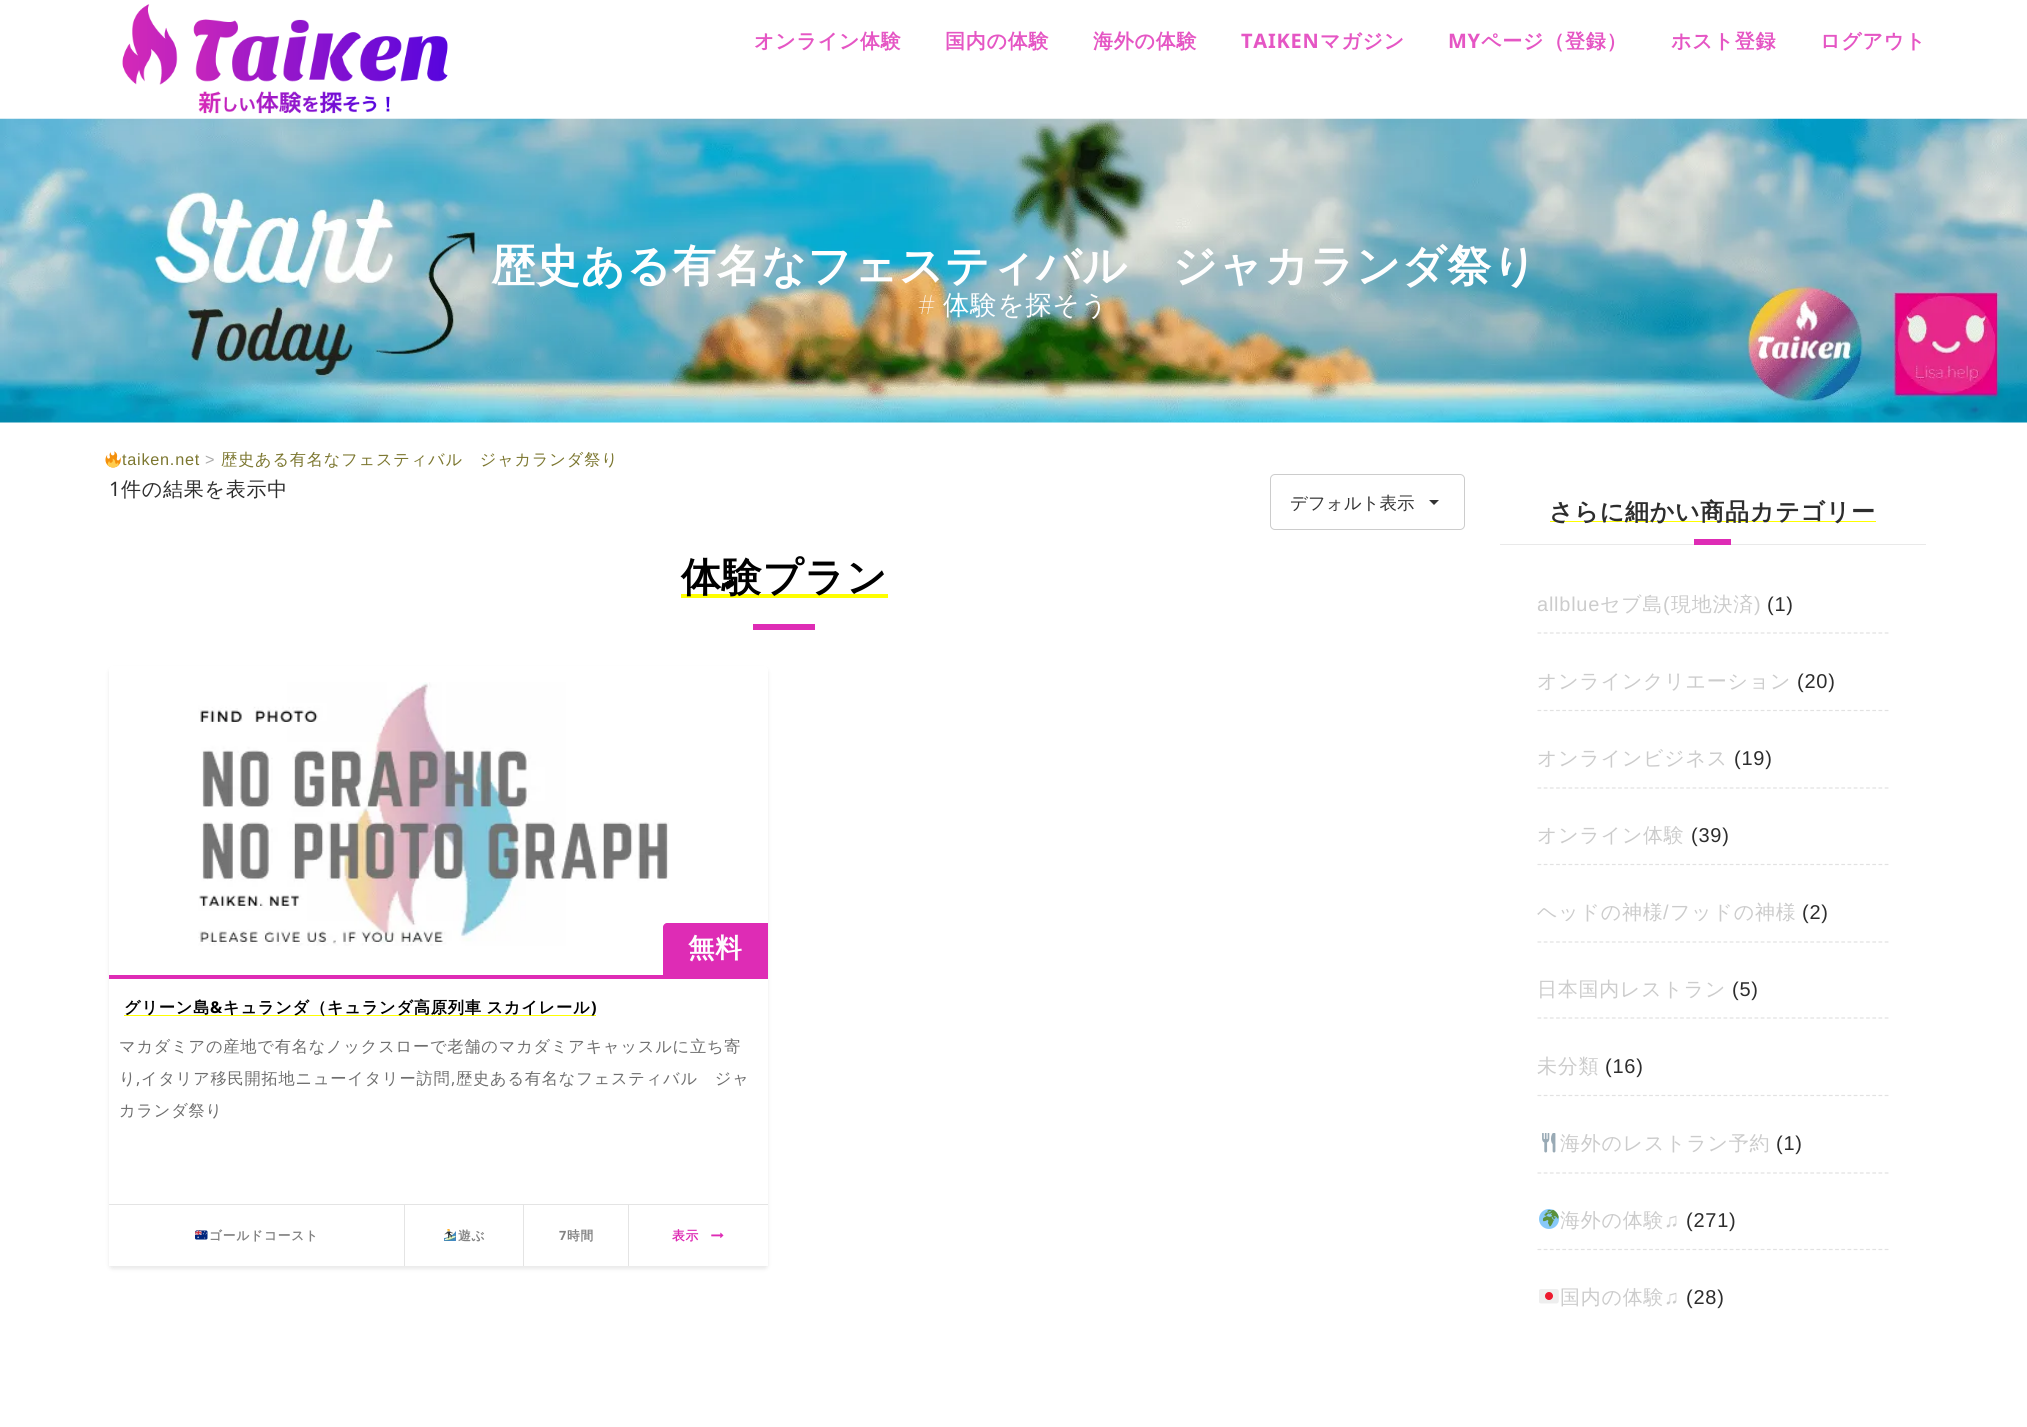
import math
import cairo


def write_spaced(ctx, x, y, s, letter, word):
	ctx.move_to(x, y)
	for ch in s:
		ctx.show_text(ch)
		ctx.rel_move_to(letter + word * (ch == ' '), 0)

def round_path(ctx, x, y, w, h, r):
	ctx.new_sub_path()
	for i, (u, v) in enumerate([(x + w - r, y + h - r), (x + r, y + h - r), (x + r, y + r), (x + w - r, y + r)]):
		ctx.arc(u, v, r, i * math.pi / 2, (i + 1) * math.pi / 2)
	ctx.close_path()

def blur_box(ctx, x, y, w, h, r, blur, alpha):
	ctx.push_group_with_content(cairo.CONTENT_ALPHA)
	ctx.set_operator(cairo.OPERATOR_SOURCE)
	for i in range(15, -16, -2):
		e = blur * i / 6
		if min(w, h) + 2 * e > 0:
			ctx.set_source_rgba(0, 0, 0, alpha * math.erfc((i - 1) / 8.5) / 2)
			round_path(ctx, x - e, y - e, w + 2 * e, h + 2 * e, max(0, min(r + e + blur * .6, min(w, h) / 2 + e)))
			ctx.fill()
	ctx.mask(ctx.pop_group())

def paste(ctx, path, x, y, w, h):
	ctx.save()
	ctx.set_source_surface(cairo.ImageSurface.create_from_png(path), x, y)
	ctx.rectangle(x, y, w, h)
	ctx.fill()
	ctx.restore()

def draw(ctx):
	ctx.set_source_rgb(1, 1, 1)
	ctx.paint()
	paste(ctx, 'media/1.png', 122, 4, 326, 110)
	ctx.select_font_face('WenQuanYi Zen Hei', cairo.FONT_SLANT_NORMAL, cairo.FONT_WEIGHT_BOLD)
	ctx.set_font_size(20)
	ctx.set_source_rgb(0.898, 0.337, 0.769)
	for x, y, s in [
		(754, 48, 'オンライン体験'),
		(945, 48, '国内の体験'),
		(1093, 48, '海外の体験'),
	]:
		write_spaced(ctx, x, y, s, 0.75, 0)
	ctx.select_font_face('Noto Sans', cairo.FONT_SLANT_NORMAL, cairo.FONT_WEIGHT_BOLD)
	write_spaced(ctx, 1241, 48, 'TAIKEN', 0.75, 0)
	ctx.select_font_face('WenQuanYi Zen Hei', cairo.FONT_SLANT_NORMAL, cairo.FONT_WEIGHT_BOLD)
	write_spaced(ctx, 1320, 48, 'マガジン', 0.75, 0)
	ctx.select_font_face('Noto Sans', cairo.FONT_SLANT_NORMAL, cairo.FONT_WEIGHT_BOLD)
	write_spaced(ctx, 1448, 48, 'MY', 0.75, 0)
	ctx.select_font_face('WenQuanYi Zen Hei', cairo.FONT_SLANT_NORMAL, cairo.FONT_WEIGHT_BOLD)
	for x, y, s in [
		(1481, 48, 'ページ（登録）'),
		(1671, 48, 'ホスト登録'),
		(1820, 48, 'ログアウト'),
	]:
		write_spaced(ctx, x, y, s, 0.75, 0)
	paste(ctx, 'media/2.png', 0, 118, 2027, 305)
	ctx.set_font_size(44)
	ctx.set_source_rgb(0.996, 0.996, 0.996)
	write_spaced(ctx, 491, 281, '歴史ある有名なフェスティバル　ジャカランダ祭り', 0.75, 0)
	ctx.select_font_face('Noto Sans Thin')
	ctx.set_font_size(26.5)
	write_spaced(ctx, 918, 314, '#', 0.75, 0)
	ctx.select_font_face('WenQuanYi Zen Hei Medium')
	write_spaced(ctx, 943, 314, '体験を探そう', 0.75, 0)
	paste(ctx, 'media/3.png', 105, 451, 16, 17)
	ctx.select_font_face('Liberation Sans')
	ctx.set_font_size(16.25)
	ctx.set_source_rgb(0.486, 0.467, 0.188)
	write_spaced(ctx, 122, 465, 'taiken.net', 0.75, 0)
	ctx.set_source_rgb(0.671, 0.671, 0.671)
	write_spaced(ctx, 205, 465, '>', 0.75, 0)
	ctx.select_font_face('WenQuanYi Zen Hei Medium')
	ctx.set_source_rgb(0.486, 0.467, 0.188)
	write_spaced(ctx, 221, 465, '歴史ある有名なフェスティバル　ジャカランダ祭り', 0.75, 0)
	ctx.select_font_face('Noto Sans')
	ctx.set_font_size(20)
	ctx.set_source_rgb(0.176, 0.176, 0.176)
	write_spaced(ctx, 109, 496, '1', 0.75, 0)
	ctx.select_font_face('WenQuanYi Zen Hei Medium')
	write_spaced(ctx, 121, 496, '件の結果を表示中', 0.75, 0)
	round_path(ctx, 1270.5, 474.5, 194, 55, 4.5)
	ctx.set_source_rgb(0.8, 0.8, 0.8)
	ctx.set_line_width(1)
	ctx.stroke()
	ctx.set_font_size(17.5)
	ctx.set_source_rgb(0.2, 0.2, 0.2)
	ctx.move_to(1290, 509)
	ctx.show_text('デフォルト表示')
	ctx.new_path()
	ctx.move_to(1429, 500)
	ctx.line_to(1439, 500)
	ctx.line_to(1434, 505)
	ctx.close_path()
	ctx.fill()
	ctx.set_source_rgb(1, 1, 0)
	ctx.rectangle(681, 594, 207, 4)
	ctx.fill()
	ctx.select_font_face('WenQuanYi Zen Hei', cairo.FONT_SLANT_NORMAL, cairo.FONT_WEIGHT_BOLD)
	ctx.set_font_size(40)
	ctx.set_source_rgb(0, 0, 0)
	write_spaced(ctx, 681, 591, '体験プラン', 0.75, 0)
	ctx.set_source_rgb(0.871, 0.173, 0.71)
	ctx.rectangle(753, 624, 62, 6)
	ctx.fill()
	ctx.set_source_rgb(0, 0, 0)
	blur_box(ctx, 109, 669, 659, 600, 4, 2, 0.09)
	ctx.set_source_rgb(1, 1, 1)
	round_path(ctx, 109, 666, 659, 600, 4)
	ctx.fill()
	paste(ctx, 'media/4.png', 198, 682, 471, 264)
	ctx.set_source_rgb(0.871, 0.173, 0.71)
	ctx.new_path()
	ctx.move_to(667, 923)
	ctx.line_to(768, 923)
	ctx.line_to(768, 979)
	ctx.line_to(663, 979)
	ctx.line_to(663, 927)
	ctx.curve_to(663, 925, 665, 923, 667, 923)
	ctx.close_path()
	ctx.fill()
	ctx.set_font_size(26.5)
	ctx.set_source_rgb(0.996, 0.996, 0.996)
	write_spaced(ctx, 688, 957, '無料', 0.75, 0)
	ctx.set_source_rgb(0.871, 0.173, 0.71)
	ctx.rectangle(109, 975, 554, 4)
	ctx.fill()
	ctx.set_source_rgb(1, 1, 0)
	ctx.rectangle(124, 1015, 472, 1)
	ctx.fill()
	ctx.set_font_size(16.25)
	ctx.set_source_rgb(0, 0, 0)
	write_spaced(ctx, 124, 1013, 'グリーン島', 0.75, 0)
	ctx.select_font_face('Noto Sans', cairo.FONT_SLANT_NORMAL, cairo.FONT_WEIGHT_BOLD)
	write_spaced(ctx, 210, 1013, '&', 0.75, 0)
	ctx.select_font_face('WenQuanYi Zen Hei', cairo.FONT_SLANT_NORMAL, cairo.FONT_WEIGHT_BOLD)
	write_spaced(ctx, 223, 1013, 'キュランダ（キュランダ高原列車 スカイレール', 0.75, -1)
	ctx.select_font_face('Noto Sans', cairo.FONT_SLANT_NORMAL, cairo.FONT_WEIGHT_BOLD)
	write_spaced(ctx, 591, 1013, ')', 0.75, 0)
	ctx.select_font_face('WenQuanYi Zen Hei Medium')
	ctx.set_source_rgb(0.431, 0.431, 0.431)
	write_spaced(ctx, 119, 1052, 'マカダミアの産地で有名なノックスローで老舗のマカダミアキャッスルに立ち寄', 0.75, 0)
	write_spaced(ctx, 119, 1084, 'り', 0.75, 0)
	ctx.select_font_face('Noto Sans')
	write_spaced(ctx, 136, 1084, ',', 0.75, 0)
	ctx.select_font_face('WenQuanYi Zen Hei Medium')
	write_spaced(ctx, 141, 1084, 'イタリア移民開拓地ニューイタリー訪問', 0.75, 0)
	ctx.select_font_face('Noto Sans')
	write_spaced(ctx, 451, 1084, ',', 0.75, 0)
	ctx.select_font_face('WenQuanYi Zen Hei Medium')
	write_spaced(ctx, 456, 1084, '歴史ある有名なフェスティバル　ジャ', 0.75, 0)
	write_spaced(ctx, 119, 1116, 'カランダ祭り', 0.75, 0)
	ctx.set_source_rgb(1, 1, 1)
	ctx.rectangle(109, 1263, 659, 3)
	ctx.fill()
	ctx.set_source_rgb(0.894, 0.894, 0.894)
	ctx.rectangle(109, 1204, 659, 1)
	ctx.rectangle(404, 1205, 1, 61)
	ctx.fill()
	paste(ctx, 'media/5.png', 195, 1230, 13, 10)
	ctx.select_font_face('WenQuanYi Zen Hei', cairo.FONT_SLANT_NORMAL, cairo.FONT_WEIGHT_BOLD)
	ctx.set_font_size(12.75)
	ctx.set_source_rgb(0.51, 0.51, 0.51)
	write_spaced(ctx, 209, 1240, 'ゴールドコースト', 0.75, 0)
	ctx.set_source_rgb(0.894, 0.894, 0.894)
	ctx.rectangle(523, 1205, 1, 61)
	ctx.fill()
	paste(ctx, 'media/6.png', 444, 1229, 12, 12)
	ctx.set_source_rgb(0.51, 0.51, 0.51)
	write_spaced(ctx, 458, 1240, '遊ぶ', 0.75, 0)
	ctx.set_source_rgb(0.894, 0.894, 0.894)
	ctx.rectangle(628, 1205, 1, 61)
	ctx.fill()
	ctx.select_font_face('Noto Sans', cairo.FONT_SLANT_NORMAL, cairo.FONT_WEIGHT_BOLD)
	ctx.set_source_rgb(0.51, 0.51, 0.51)
	write_spaced(ctx, 559, 1240, '7', 0.75, 0)
	ctx.select_font_face('WenQuanYi Zen Hei', cairo.FONT_SLANT_NORMAL, cairo.FONT_WEIGHT_BOLD)
	write_spaced(ctx, 567, 1240, '時間', 0.75, 0)
	ctx.set_source_rgb(0.871, 0.173, 0.71)
	write_spaced(ctx, 672, 1240, '表示', 0.75, 0)
	paste(ctx, 'media/7.png', 711, 1232, 13, 6)
	ctx.set_source_rgb(0.914, 0.914, 0.914)
	ctx.rectangle(1500, 544, 426, 1)
	ctx.fill()
	ctx.set_source_rgb(1, 1, 0)
	ctx.rectangle(1550, 521, 326, 1)
	ctx.fill()
	ctx.set_font_size(24)
	ctx.set_source_rgb(0.176, 0.176, 0.176)
	write_spaced(ctx, 1549, 520, 'さらに細かい商品カテゴリー', 0.75, 0)
	ctx.set_source_rgb(0.871, 0.173, 0.71)
	ctx.rectangle(1694, 539, 37, 6)
	ctx.fill()
	ctx.new_path()
	ctx.move_to(1537.5, 633)
	ctx.line_to(1889, 633)
	ctx.set_source_rgb(0.886, 0.886, 0.886)
	ctx.set_line_width(1.2)
	ctx.set_dash([3.75, 2.45])
	ctx.stroke()
	ctx.select_font_face('Liberation Sans')
	ctx.set_font_size(20)
	ctx.set_source_rgb(0.8, 0.8, 0.8)
	write_spaced(ctx, 1537, 611, 'allblue', 0.75, 0)
	ctx.select_font_face('WenQuanYi Zen Hei Medium')
	write_spaced(ctx, 1600, 611, 'セブ島', 0.75, 0)
	ctx.select_font_face('Liberation Sans')
	write_spaced(ctx, 1663, 611, '(', 0.75, 0)
	ctx.select_font_face('WenQuanYi Zen Hei Medium')
	write_spaced(ctx, 1671, 611, '現地決済', 0.75, 0)
	ctx.select_font_face('Liberation Sans')
	write_spaced(ctx, 1754, 611, ')', 0.75, 0)
	ctx.set_source_rgb(0.176, 0.176, 0.176)
	write_spaced(ctx, 1767, 611, '(1)', 0.75, 0)
	ctx.new_path()
	ctx.move_to(1537.5, 710.5)
	ctx.line_to(1889, 710.5)
	ctx.set_source_rgb(0.886, 0.886, 0.886)
	ctx.stroke()
	ctx.select_font_face('WenQuanYi Zen Hei Medium')
	ctx.set_source_rgb(0.8, 0.8, 0.8)
	write_spaced(ctx, 1537, 688, 'オンラインクリエーション', 0.75, 0)
	ctx.select_font_face('Liberation Sans')
	ctx.set_source_rgb(0.176, 0.176, 0.176)
	write_spaced(ctx, 1797, 688, '(20)', 0.75, 0)
	ctx.new_path()
	ctx.move_to(1537.5, 788)
	ctx.line_to(1889, 788)
	ctx.set_source_rgb(0.886, 0.886, 0.886)
	ctx.stroke()
	ctx.select_font_face('WenQuanYi Zen Hei Medium')
	ctx.set_source_rgb(0.8, 0.8, 0.8)
	write_spaced(ctx, 1537, 765, 'オンラインビジネス', 0.75, 0)
	ctx.select_font_face('Liberation Sans')
	ctx.set_source_rgb(0.176, 0.176, 0.176)
	write_spaced(ctx, 1734, 765, '(19)', 0.75, 0)
	ctx.new_path()
	ctx.move_to(1537.5, 864.5)
	ctx.line_to(1889, 864.5)
	ctx.set_source_rgb(0.886, 0.886, 0.886)
	ctx.stroke()
	ctx.select_font_face('WenQuanYi Zen Hei Medium')
	ctx.set_source_rgb(0.8, 0.8, 0.8)
	write_spaced(ctx, 1537, 842, 'オンライン体験', 0.75, 0)
	ctx.select_font_face('Liberation Sans')
	ctx.set_source_rgb(0.176, 0.176, 0.176)
	write_spaced(ctx, 1691, 842, '(39)', 0.75, 0)
	ctx.new_path()
	ctx.move_to(1537.5, 942)
	ctx.line_to(1889, 942)
	ctx.set_source_rgb(0.886, 0.886, 0.886)
	ctx.stroke()
	ctx.select_font_face('WenQuanYi Zen Hei Medium')
	ctx.set_source_rgb(0.8, 0.8, 0.8)
	write_spaced(ctx, 1537, 919, 'ヘッドの神様', 0.75, 0)
	ctx.select_font_face('Liberation Sans')
	write_spaced(ctx, 1663, 919, '/', 0.75, 0)
	ctx.select_font_face('WenQuanYi Zen Hei Medium')
	write_spaced(ctx, 1670, 919, 'フッドの神様', 0.75, 0)
	ctx.select_font_face('Liberation Sans')
	ctx.set_source_rgb(0.176, 0.176, 0.176)
	write_spaced(ctx, 1802, 919, '(2)', 0.75, 0)
	ctx.new_path()
	ctx.move_to(1537.5, 1018)
	ctx.line_to(1889, 1018)
	ctx.set_source_rgb(0.886, 0.886, 0.886)
	ctx.stroke()
	ctx.select_font_face('WenQuanYi Zen Hei Medium')
	ctx.set_source_rgb(0.8, 0.8, 0.8)
	write_spaced(ctx, 1537, 996, '日本国内レストラン', 0.75, 0)
	ctx.select_font_face('Liberation Sans')
	ctx.set_source_rgb(0.176, 0.176, 0.176)
	write_spaced(ctx, 1732, 996, '(5)', 0.75, 0)
	ctx.new_path()
	ctx.move_to(1537.5, 1095.5)
	ctx.line_to(1889, 1095.5)
	ctx.set_source_rgb(0.886, 0.886, 0.886)
	ctx.stroke()
	ctx.select_font_face('WenQuanYi Zen Hei Medium')
	ctx.set_source_rgb(0.8, 0.8, 0.8)
	write_spaced(ctx, 1537, 1073, '未分類', 0.75, 0)
	ctx.select_font_face('Liberation Sans')
	ctx.set_source_rgb(0.176, 0.176, 0.176)
	write_spaced(ctx, 1605, 1073, '(16)', 0.75, 0)
	ctx.new_path()
	ctx.move_to(1537.5, 1173)
	ctx.line_to(1889, 1173)
	ctx.set_source_rgb(0.886, 0.886, 0.886)
	ctx.stroke()
	paste(ctx, 'media/8.png', 1542, 1133, 14, 20)
	ctx.select_font_face('WenQuanYi Zen Hei Medium')
	ctx.set_source_rgb(0.8, 0.8, 0.8)
	write_spaced(ctx, 1560, 1150, '海外のレストラン予約', 0.75, 0)
	ctx.select_font_face('Liberation Sans')
	ctx.set_source_rgb(0.176, 0.176, 0.176)
	write_spaced(ctx, 1776, 1150, '(1)', 0.75, 0)
	ctx.new_path()
	ctx.move_to(1537.5, 1249.5)
	ctx.line_to(1889, 1249.5)
	ctx.set_source_rgb(0.886, 0.886, 0.886)
	ctx.stroke()
	paste(ctx, 'media/9.png', 1539, 1209, 20, 20)
	ctx.select_font_face('WenQuanYi Zen Hei Medium')
	ctx.set_source_rgb(0.8, 0.8, 0.8)
	write_spaced(ctx, 1560, 1227, '海外の体験', 0.75, 0)
	ctx.select_font_face('Liberation Sans')
	write_spaced(ctx, 1664, 1227, '♫', 0.75, 0)
	ctx.set_source_rgb(0.176, 0.176, 0.176)
	write_spaced(ctx, 1686, 1227, '(271)', 0.75, 0)
	paste(ctx, 'media/10.png', 1539, 1289, 20, 15)
	ctx.select_font_face('WenQuanYi Zen Hei Medium')
	ctx.set_source_rgb(0.8, 0.8, 0.8)
	write_spaced(ctx, 1560, 1304, '国内の体験', 0.75, 0)
	ctx.select_font_face('Liberation Sans')
	write_spaced(ctx, 1664, 1304, '♫', 0.75, 0)
	ctx.set_source_rgb(0.176, 0.176, 0.176)
	write_spaced(ctx, 1686, 1304, '(28)', 0.75, 0)


surface = cairo.ImageSurface(cairo.FORMAT_RGB24, 2027, 1427)
ctx = cairo.Context(surface)
options = cairo.FontOptions()
options.set_hint_metrics(cairo.HINT_METRICS_OFF)
options.set_hint_style(cairo.HINT_STYLE_NONE)
ctx.set_font_options(options)
ctx.set_miter_limit(4)
draw(ctx)
surface.write_to_png('image.png')
